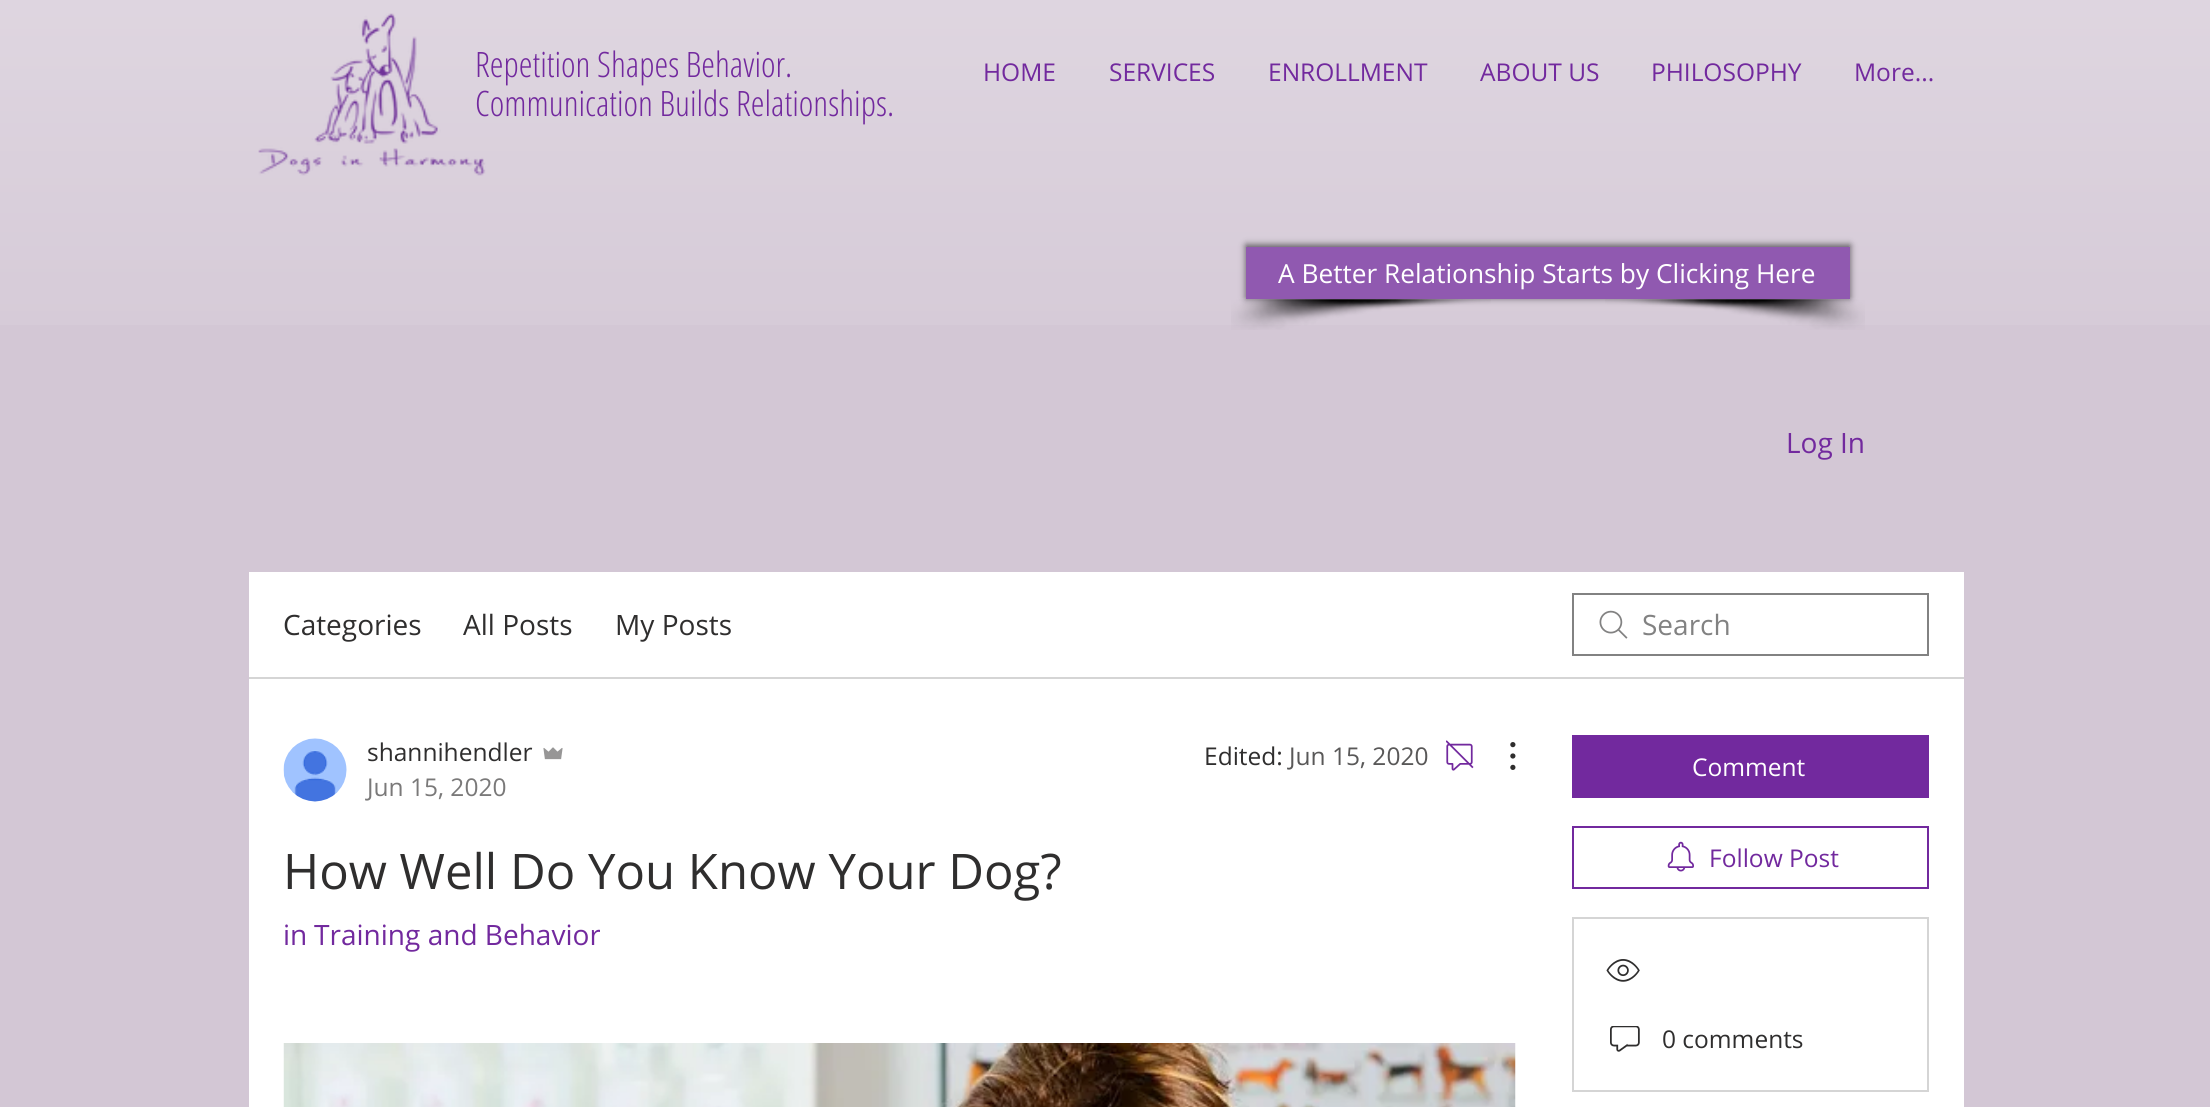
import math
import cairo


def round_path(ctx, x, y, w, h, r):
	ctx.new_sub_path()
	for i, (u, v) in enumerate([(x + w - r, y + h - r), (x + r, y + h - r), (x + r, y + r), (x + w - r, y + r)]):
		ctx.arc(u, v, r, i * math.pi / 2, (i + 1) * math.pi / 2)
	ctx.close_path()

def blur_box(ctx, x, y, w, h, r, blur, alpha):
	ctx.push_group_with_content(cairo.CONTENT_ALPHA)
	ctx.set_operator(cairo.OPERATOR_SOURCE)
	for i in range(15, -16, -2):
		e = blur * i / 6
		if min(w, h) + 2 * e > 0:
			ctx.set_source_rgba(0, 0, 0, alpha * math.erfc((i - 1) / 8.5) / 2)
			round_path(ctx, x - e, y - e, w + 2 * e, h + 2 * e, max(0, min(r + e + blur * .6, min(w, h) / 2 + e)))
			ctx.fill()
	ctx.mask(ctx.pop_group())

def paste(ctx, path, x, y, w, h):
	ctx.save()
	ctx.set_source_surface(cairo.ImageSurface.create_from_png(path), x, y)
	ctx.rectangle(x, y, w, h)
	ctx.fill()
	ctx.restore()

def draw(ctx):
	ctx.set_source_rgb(0.827, 0.78, 0.835)
	ctx.paint()
	paste(ctx, 'media/1.png', 0, 0, 2210, 325)
	ctx.select_font_face('Open Sans Condensed Light')
	ctx.set_font_size(35)
	ctx.set_source_rgb(0.447, 0.161, 0.62)
	ctx.move_to(475, 77)
	ctx.show_text('Repetition Shapes Behavior.')
	ctx.move_to(475, 116)
	ctx.show_text('Communication Builds Relationships.')
	paste(ctx, 'media/2.png', 258, 13, 228, 163)
	ctx.select_font_face('Open Sans')
	ctx.set_font_size(24.5)
	for x, y, s in [
		(983, 81, 'HOME'),
		(1109, 81, 'SERVICES'),
		(1268, 81, 'ENROLLMENT'),
		(1480, 81, 'ABOUT US'),
		(1651, 81, 'PHILOSOPHY'),
		(1854, 81, 'More...'),
	]:
		ctx.move_to(x, y)
		ctx.show_text(s)
	paste(ctx, 'media/3.png', 1231, 299, 260, 31)
	paste(ctx, 'media/4.png', 1605, 299, 260, 31)
	ctx.save()
	ctx.set_fill_rule(cairo.FILL_RULE_EVEN_ODD)
	ctx.new_path()
	ctx.move_to(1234, 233)
	ctx.line_to(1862, 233)
	ctx.line_to(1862, 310)
	ctx.line_to(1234, 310)
	ctx.close_path()
	ctx.move_to(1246, 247)
	ctx.line_to(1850, 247)
	ctx.line_to(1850, 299)
	ctx.line_to(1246, 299)
	ctx.close_path()
	ctx.clip()
	ctx.set_source_rgb(0, 0, 0)
	blur_box(ctx, 1246, 245, 604, 53, 0, 3.5, 0.6)
	ctx.restore()
	ctx.set_source_rgba(0.447, 0.161, 0.62, 0.7)
	ctx.rectangle(1246, 247, 604, 52)
	ctx.fill()
	ctx.set_font_size(26.25)
	ctx.set_source_rgb(1, 1, 1)
	ctx.move_to(1278, 283)
	ctx.show_text('A Better Relationship Starts by Clicking Here')
	ctx.set_font_size(28)
	ctx.set_source_rgb(0.447, 0.161, 0.62)
	ctx.move_to(1786, 453)
	ctx.show_text('Log In')
	ctx.set_source_rgb(1, 1, 1)
	ctx.rectangle(249, 572, 1715, 535)
	ctx.fill()
	ctx.set_source_rgb(0.835, 0.835, 0.835)
	ctx.rectangle(249, 677, 1715, 2)
	ctx.fill()
	ctx.set_source_rgb(0.184, 0.18, 0.18)
	for x, y, s in [
		(283, 635, 'Categories'),
		(463, 635, 'All Posts'),
		(615, 635, 'My Posts'),
	]:
		ctx.move_to(x, y)
		ctx.show_text(s)
	paste(ctx, 'media/5.png', 1599, 610, 29, 29)
	ctx.rectangle(1573, 594, 355, 61)
	ctx.set_source_rgb(0.51, 0.51, 0.51)
	ctx.stroke()
	ctx.move_to(1642, 635)
	ctx.show_text('Search')
	paste(ctx, 'media/6.png', 283, 738, 64, 64)
	ctx.set_font_size(24.5)
	ctx.set_source_rgb(0.184, 0.18, 0.18)
	ctx.move_to(367, 761)
	ctx.show_text('shannihendler')
	paste(ctx, 'media/7.png', 543, 747, 20, 13)
	ctx.set_source_rgb(0.478, 0.475, 0.475)
	ctx.move_to(367, 796)
	ctx.show_text('Jun 15, 2020')
	ctx.set_source_rgb(0.184, 0.18, 0.18)
	ctx.move_to(1204, 765)
	ctx.show_text('Edited:')
	ctx.set_source_rgb(0.349, 0.345, 0.345)
	ctx.move_to(1289, 765)
	ctx.show_text('Jun 15, 2020')
	paste(ctx, 'media/8.png', 1446, 740, 28, 31)
	paste(ctx, 'media/9.png', 1510, 742, 6, 28)
	ctx.set_font_size(49)
	ctx.set_source_rgb(0.184, 0.18, 0.18)
	ctx.move_to(283, 889)
	ctx.show_text('How Well Do You Know Your Dog?')
	ctx.set_font_size(28)
	ctx.set_source_rgb(0.447, 0.161, 0.62)
	ctx.move_to(283, 945)
	ctx.show_text('in')
	ctx.save()
	ctx.rectangle(284, 910, 316, 49)
	ctx.clip()
	ctx.move_to(314, 945)
	ctx.show_text('Training and Behavior')
	ctx.restore()
	paste(ctx, 'media/10.png', 283, 1043, 1233, 64)
	ctx.rectangle(1572, 735, 357, 63)
	ctx.fill()
	ctx.set_font_size(24.5)
	ctx.set_source_rgb(1, 1, 1)
	ctx.move_to(1692, 776)
	ctx.show_text('Comment')
	ctx.rectangle(1573, 827, 355, 61)
	ctx.set_source_rgb(0.447, 0.161, 0.62)
	ctx.stroke()
	paste(ctx, 'media/11.png', 1667, 841, 27, 31)
	ctx.move_to(1709, 867)
	ctx.show_text('Follow Post')
	ctx.rectangle(1573, 918, 355, 173)
	ctx.set_source_rgb(0.835, 0.835, 0.835)
	ctx.stroke()
	paste(ctx, 'media/12.png', 1606, 959, 34, 23)
	paste(ctx, 'media/13.png', 1610, 1026, 30, 26)
	ctx.set_source_rgb(0.184, 0.18, 0.18)
	ctx.move_to(1662, 1048)
	ctx.show_text('0 comments')


surface = cairo.ImageSurface(cairo.FORMAT_RGB24, 2210, 1107)
ctx = cairo.Context(surface)
options = cairo.FontOptions()
options.set_hint_metrics(cairo.HINT_METRICS_OFF)
options.set_hint_style(cairo.HINT_STYLE_NONE)
ctx.set_font_options(options)
ctx.set_miter_limit(4)
draw(ctx)
surface.write_to_png('image.png')
